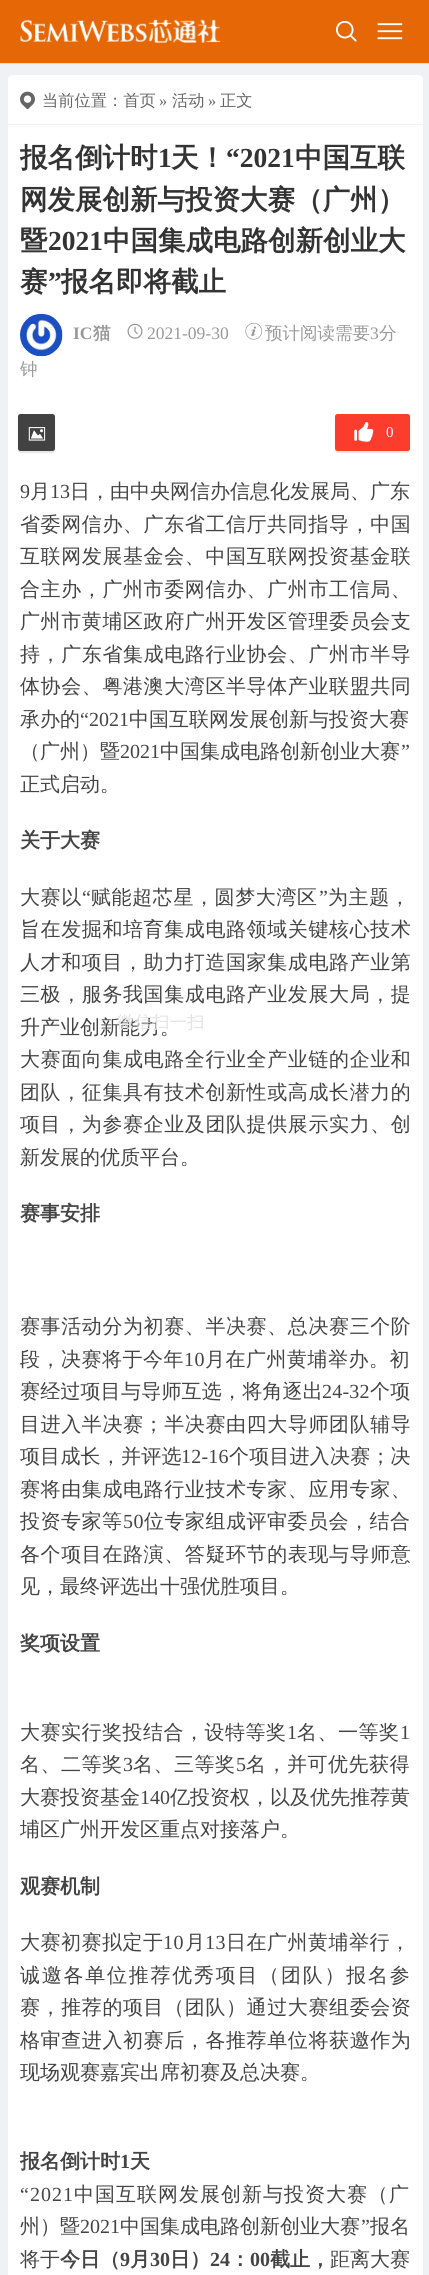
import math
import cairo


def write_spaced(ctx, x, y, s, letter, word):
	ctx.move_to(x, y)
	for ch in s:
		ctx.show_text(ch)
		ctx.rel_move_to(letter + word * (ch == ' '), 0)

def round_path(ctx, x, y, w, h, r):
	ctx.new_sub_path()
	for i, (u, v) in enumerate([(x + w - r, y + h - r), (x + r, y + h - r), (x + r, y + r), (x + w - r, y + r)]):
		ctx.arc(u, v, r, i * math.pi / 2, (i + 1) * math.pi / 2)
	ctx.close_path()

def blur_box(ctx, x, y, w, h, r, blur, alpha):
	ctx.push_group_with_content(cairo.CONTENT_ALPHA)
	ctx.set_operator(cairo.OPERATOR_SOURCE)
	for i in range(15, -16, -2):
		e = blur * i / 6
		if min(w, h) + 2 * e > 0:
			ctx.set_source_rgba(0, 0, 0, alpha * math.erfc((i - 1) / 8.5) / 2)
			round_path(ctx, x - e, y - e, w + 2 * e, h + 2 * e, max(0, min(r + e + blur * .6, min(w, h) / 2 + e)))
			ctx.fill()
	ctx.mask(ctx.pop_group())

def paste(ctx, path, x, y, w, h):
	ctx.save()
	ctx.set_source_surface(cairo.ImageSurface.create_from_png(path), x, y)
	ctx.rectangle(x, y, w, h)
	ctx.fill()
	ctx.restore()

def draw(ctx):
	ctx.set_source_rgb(0.941, 0.945, 0.957)
	ctx.paint()
	ctx.set_source_rgb(0.902, 0.906, 0.918)
	ctx.rectangle(0, 63, 429, 1)
	ctx.fill()
	ctx.set_source_rgba(0, 0, 0, 0.04)
	ctx.rectangle(0, 63, 429, 1)
	ctx.fill()
	ctx.set_source_rgb(0.898, 0.404, 0.024)
	ctx.rectangle(0, 0, 429, 63)
	ctx.fill()
	paste(ctx, 'media/1.png', 20, 19, 201, 25)
	paste(ctx, 'media/2.png', 335, 20, 22, 22)
	paste(ctx, 'media/3.png', 377, 23, 26, 17)
	ctx.set_source_rgb(1, 1, 1)
	ctx.new_path()
	ctx.move_to(13, 75)
	ctx.line_to(418, 75)
	ctx.curve_to(421, 75, 423, 77, 423, 80)
	ctx.line_to(423, 124)
	ctx.line_to(8, 124)
	ctx.line_to(8, 80)
	ctx.curve_to(8, 77, 10, 75, 13, 75)
	ctx.close_path()
	ctx.fill()
	paste(ctx, 'media/4.png', 20, 91, 15, 19)
	ctx.select_font_face('WenQuanYi Zen Hei Medium')
	ctx.set_font_size(16.25)
	ctx.set_source_rgb(0.4, 0.4, 0.4)
	ctx.move_to(42, 106)
	ctx.show_text('当前位置：首页')
	ctx.select_font_face('Liberation Serif')
	ctx.move_to(159, 106)
	ctx.show_text('»')
	ctx.select_font_face('WenQuanYi Zen Hei Medium')
	ctx.move_to(172, 106)
	ctx.show_text('活动')
	ctx.select_font_face('Liberation Serif')
	ctx.move_to(208, 106)
	ctx.show_text('»')
	ctx.select_font_face('WenQuanYi Zen Hei Medium')
	ctx.move_to(220, 106)
	ctx.show_text('正文')
	ctx.set_source_rgb(1, 1, 1)
	ctx.rectangle(8, 125, 415, 2150)
	ctx.fill()
	ctx.select_font_face('WenQuanYi Zen Hei', cairo.FONT_SLANT_NORMAL, cairo.FONT_WEIGHT_BOLD)
	ctx.set_font_size(27.5)
	ctx.set_source_rgb(0.2, 0.2, 0.2)
	ctx.move_to(20, 167)
	ctx.show_text('报名倒计时')
	ctx.select_font_face('Liberation Serif', cairo.FONT_SLANT_NORMAL, cairo.FONT_WEIGHT_BOLD)
	ctx.move_to(158, 167)
	ctx.show_text('1')
	ctx.select_font_face('WenQuanYi Zen Hei', cairo.FONT_SLANT_NORMAL, cairo.FONT_WEIGHT_BOLD)
	ctx.move_to(171, 167)
	ctx.show_text('天！')
	ctx.select_font_face('Liberation Serif', cairo.FONT_SLANT_NORMAL, cairo.FONT_WEIGHT_BOLD)
	ctx.move_to(226, 167)
	ctx.show_text('“2021')
	ctx.select_font_face('WenQuanYi Zen Hei', cairo.FONT_SLANT_NORMAL, cairo.FONT_WEIGHT_BOLD)
	for x, y, s in [
		(295, 167, '中国互联'),
		(20, 209, '网发展创新与投资大赛（广州）'),
		(20, 250, '暨'),
	]:
		ctx.move_to(x, y)
		ctx.show_text(s)
	ctx.select_font_face('Liberation Serif', cairo.FONT_SLANT_NORMAL, cairo.FONT_WEIGHT_BOLD)
	ctx.move_to(48, 250)
	ctx.show_text('2021')
	ctx.select_font_face('WenQuanYi Zen Hei', cairo.FONT_SLANT_NORMAL, cairo.FONT_WEIGHT_BOLD)
	ctx.move_to(103, 250)
	ctx.show_text('中国集成电路创新创业大')
	ctx.move_to(20, 291)
	ctx.show_text('赛')
	ctx.select_font_face('Liberation Serif', cairo.FONT_SLANT_NORMAL, cairo.FONT_WEIGHT_BOLD)
	ctx.move_to(48, 291)
	ctx.show_text('”')
	ctx.select_font_face('WenQuanYi Zen Hei', cairo.FONT_SLANT_NORMAL, cairo.FONT_WEIGHT_BOLD)
	ctx.move_to(61, 291)
	ctx.show_text('报名即将截止')
	paste(ctx, 'media/5.png', 20, 313, 43, 44)
	ctx.select_font_face('Liberation Serif', cairo.FONT_SLANT_NORMAL, cairo.FONT_WEIGHT_BOLD)
	ctx.set_font_size(17.5)
	ctx.set_source_rgb(0.6, 0.6, 0.6)
	ctx.move_to(73, 339)
	ctx.show_text('IC')
	ctx.select_font_face('WenQuanYi Zen Hei', cairo.FONT_SLANT_NORMAL, cairo.FONT_WEIGHT_BOLD)
	ctx.move_to(93, 339)
	ctx.show_text('猫')
	paste(ctx, 'media/6.png', 127, 323, 16, 16)
	ctx.select_font_face('Liberation Serif')
	ctx.move_to(147, 339)
	ctx.show_text('2021-09-30')
	paste(ctx, 'media/7.png', 245, 322, 18, 18)
	ctx.select_font_face('WenQuanYi Zen Hei Medium')
	ctx.move_to(265, 339)
	ctx.show_text('预计阅读需要')
	ctx.select_font_face('Liberation Serif')
	ctx.move_to(370, 339)
	ctx.show_text('3')
	ctx.select_font_face('WenQuanYi Zen Hei Medium')
	ctx.move_to(379, 339)
	ctx.show_text('分')
	ctx.move_to(20, 375)
	ctx.show_text('钟')
	ctx.set_source_rgb(0, 0, 0)
	blur_box(ctx, 335, 415, 75, 38, 2.5, 0.5, 0.1)
	ctx.set_source_rgb(0.988, 0.235, 0.176)
	round_path(ctx, 335, 414, 75, 37, 2.5)
	ctx.fill()
	paste(ctx, 'media/8.png', 354, 422, 20, 20)
	ctx.select_font_face('Liberation Serif')
	ctx.set_font_size(15)
	ctx.set_source_rgb(1, 1, 1)
	ctx.move_to(386, 437)
	ctx.show_text('0')
	ctx.set_source_rgb(0, 0, 0)
	blur_box(ctx, 18, 415, 37, 38, 2.5, 0.5, 0.1)
	ctx.set_source_rgb(0.259, 0.259, 0.259)
	round_path(ctx, 18, 414, 37, 37, 2.5)
	ctx.fill()
	paste(ctx, 'media/9.png', 28, 427, 18, 14)
	ctx.select_font_face('WenQuanYi Zen Hei Medium')
	ctx.set_font_size(20)
	ctx.set_source_rgb(0.267, 0.267, 0.267)
	ctx.move_to(20, 1034)
	ctx.show_text('升产业创新能力。')
	ctx.set_font_size(17.5)
	ctx.set_source_rgb(0.886, 0.886, 0.886)
	ctx.move_to(117, 1028)
	ctx.show_text('微信扫一扫')
	ctx.select_font_face('Liberation Serif')
	ctx.set_font_size(20)
	ctx.set_source_rgb(0.267, 0.267, 0.267)
	ctx.move_to(20, 498)
	ctx.show_text('9')
	ctx.select_font_face('WenQuanYi Zen Hei Medium')
	ctx.move_to(30, 498)
	ctx.show_text('月')
	ctx.select_font_face('Liberation Serif')
	ctx.move_to(50, 498)
	ctx.show_text('13')
	ctx.select_font_face('WenQuanYi Zen Hei Medium')
	ctx.move_to(70, 498)
	ctx.show_text('日，由中央网信办信息化发展局、广东')
	for x, y, s in [
		(20, 531, '省委网信办、广东省工信厅共同指导，中国'),
		(20, 563, '互联网发展基金会、中国互联网投资基金联'),
		(20, 596, '合主办，广州市委网信办、广州市工信局、'),
		(20, 628, '广州市黄埔区政府广州开发区管理委员会支'),
		(20, 661, '持，广东省集成电路行业协会、广州市半导'),
		(20, 693, '体协会、粤港澳大湾区半导体产业联盟共同'),
	]:
		write_spaced(ctx, x, y, s, 0.6, 0)
	ctx.move_to(20, 726)
	ctx.show_text('承办的')
	ctx.select_font_face('Liberation Serif')
	ctx.move_to(80, 726)
	ctx.show_text('“2021')
	ctx.select_font_face('WenQuanYi Zen Hei Medium')
	ctx.move_to(129, 726)
	ctx.show_text('中国互联网发展创新与投资大赛')
	ctx.move_to(20, 758)
	ctx.show_text('（广州）暨')
	ctx.select_font_face('Liberation Serif')
	ctx.move_to(120, 758)
	ctx.show_text('2021')
	ctx.select_font_face('WenQuanYi Zen Hei Medium')
	ctx.move_to(160, 758)
	ctx.show_text('中国集成电路创新创业大赛')
	ctx.select_font_face('Liberation Serif')
	ctx.move_to(401, 758)
	ctx.show_text('”')
	ctx.select_font_face('WenQuanYi Zen Hei Medium')
	ctx.move_to(20, 791)
	ctx.show_text('正式启动。')
	ctx.select_font_face('WenQuanYi Zen Hei', cairo.FONT_SLANT_NORMAL, cairo.FONT_WEIGHT_BOLD)
	ctx.move_to(20, 847)
	ctx.show_text('关于大赛')
	ctx.select_font_face('WenQuanYi Zen Hei Medium')
	write_spaced(ctx, 20, 904, '大赛以', 0.6, 0)
	ctx.select_font_face('Liberation Serif')
	write_spaced(ctx, 82, 904, '“', 0.6, 0)
	ctx.select_font_face('WenQuanYi Zen Hei Medium')
	write_spaced(ctx, 91, 904, '赋能超芯星，圆梦大湾区', 0.6, 0)
	ctx.select_font_face('Liberation Serif')
	write_spaced(ctx, 319, 904, '”', 0.6, 0)
	ctx.select_font_face('WenQuanYi Zen Hei Medium')
	for x, y, s in [
		(328, 904, '为主题，'),
		(20, 936, '旨在发掘和培育集成电路领域关键核心技术'),
		(20, 969, '人才和项目，助力打造国家集成电路产业第'),
		(20, 1001, '三极，服务我国集成电路产业发展大局，提'),
		(20, 1066, '大赛面向集成电路全行业全产业链的企业和'),
		(20, 1099, '团队，征集具有技术创新性或高成长潜力的'),
		(20, 1131, '项目，为参赛企业及团队提供展示实力、创'),
	]:
		write_spaced(ctx, x, y, s, 0.6, 0)
	ctx.move_to(20, 1164)
	ctx.show_text('新发展的优质平台。')
	ctx.select_font_face('WenQuanYi Zen Hei', cairo.FONT_SLANT_NORMAL, cairo.FONT_WEIGHT_BOLD)
	ctx.move_to(20, 1220)
	ctx.show_text('赛事安排')
	ctx.select_font_face('WenQuanYi Zen Hei Medium')
	write_spaced(ctx, 20, 1333, '赛事活动分为初赛、半决赛、总决赛三个阶', 0.6, 0)
	write_spaced(ctx, 20, 1366, '段，决赛将于今年', 0.5, 0)
	ctx.select_font_face('Liberation Serif')
	write_spaced(ctx, 184, 1366, '10', 0.5, 0)
	ctx.select_font_face('WenQuanYi Zen Hei Medium')
	write_spaced(ctx, 205, 1366, '月在广州黄埔举办。初', 0.5, 0)
	write_spaced(ctx, 20, 1398, '赛经过项目与导师互选，将角逐出', 0.2, 0)
	ctx.select_font_face('Liberation Serif')
	write_spaced(ctx, 322, 1398, '24-32', 0.2, 0)
	ctx.select_font_face('WenQuanYi Zen Hei Medium')
	write_spaced(ctx, 370, 1398, '个项', 0.2, 0)
	write_spaced(ctx, 20, 1431, '目进入半决赛；半决赛由四大导师团队辅导', 0.6, 0)
	write_spaced(ctx, 20, 1463, '项目成长，并评选', 0.2, 0)
	ctx.select_font_face('Liberation Serif')
	write_spaced(ctx, 181, 1463, '12-16', 0.2, 0)
	ctx.select_font_face('WenQuanYi Zen Hei Medium')
	write_spaced(ctx, 229, 1463, '个项目进入决赛；决', 0.2, 0)
	write_spaced(ctx, 20, 1496, '赛将由集成电路行业技术专家、应用专家、', 0.6, 0)
	write_spaced(ctx, 20, 1528, '投资专家等', 0.5, 0)
	ctx.select_font_face('Liberation Serif')
	write_spaced(ctx, 123, 1528, '50', 0.5, 0)
	ctx.select_font_face('WenQuanYi Zen Hei Medium')
	write_spaced(ctx, 144, 1528, '位专家组成评审委员会，结合', 0.5, 0)
	write_spaced(ctx, 20, 1561, '各个项目在路演、答疑环节的表现与导师意', 0.6, 0)
	ctx.move_to(20, 1593)
	ctx.show_text('见，最终评选出十强优胜项目。')
	ctx.select_font_face('WenQuanYi Zen Hei', cairo.FONT_SLANT_NORMAL, cairo.FONT_WEIGHT_BOLD)
	ctx.move_to(20, 1650)
	ctx.show_text('奖项设置')
	ctx.select_font_face('WenQuanYi Zen Hei Medium')
	write_spaced(ctx, 20, 1739, '大赛实行奖投结合，设特等奖', 0.5, 0)
	ctx.select_font_face('Liberation Serif')
	write_spaced(ctx, 287, 1739, '1', 0.5, 0)
	ctx.select_font_face('WenQuanYi Zen Hei Medium')
	write_spaced(ctx, 297, 1739, '名、一等奖', 0.5, 0)
	ctx.select_font_face('Liberation Serif')
	write_spaced(ctx, 400, 1739, '1', 0.5, 0)
	ctx.select_font_face('WenQuanYi Zen Hei Medium')
	write_spaced(ctx, 20, 1771, '名、二等奖', 0.5, 0)
	ctx.select_font_face('Liberation Serif')
	write_spaced(ctx, 123, 1771, '3', 0.5, 0)
	ctx.select_font_face('WenQuanYi Zen Hei Medium')
	write_spaced(ctx, 133, 1771, '名、三等奖', 0.5, 0)
	ctx.select_font_face('Liberation Serif')
	write_spaced(ctx, 236, 1771, '5', 0.5, 0)
	ctx.select_font_face('WenQuanYi Zen Hei Medium')
	write_spaced(ctx, 246, 1771, '名，并可优先获得', 0.5, 0)
	ctx.move_to(20, 1804)
	ctx.show_text('大赛投资基金')
	ctx.select_font_face('Liberation Serif')
	ctx.move_to(140, 1804)
	ctx.show_text('140')
	ctx.select_font_face('WenQuanYi Zen Hei Medium')
	ctx.move_to(170, 1804)
	ctx.show_text('亿投资权，以及优先推荐黄')
	ctx.move_to(20, 1836)
	ctx.show_text('埔区广州开发区重点对接落户。')
	ctx.select_font_face('WenQuanYi Zen Hei', cairo.FONT_SLANT_NORMAL, cairo.FONT_WEIGHT_BOLD)
	ctx.move_to(20, 1893)
	ctx.show_text('观赛机制')
	ctx.select_font_face('WenQuanYi Zen Hei Medium')
	write_spaced(ctx, 20, 1949, '大赛初赛拟定于', 0.5, 0)
	ctx.select_font_face('Liberation Serif')
	write_spaced(ctx, 163, 1949, '10', 0.5, 0)
	ctx.select_font_face('WenQuanYi Zen Hei Medium')
	write_spaced(ctx, 185, 1949, '月', 0.5, 0)
	ctx.select_font_face('Liberation Serif')
	write_spaced(ctx, 205, 1949, '13', 0.5, 0)
	ctx.select_font_face('WenQuanYi Zen Hei Medium')
	write_spaced(ctx, 226, 1949, '日在广州黄埔举行，', 0.5, 0)
	write_spaced(ctx, 20, 1982, '诚邀各单位推荐优秀项目（团队）报名参', 1.75, 0)
	write_spaced(ctx, 20, 2014, '赛，推荐的项目（团队）通过大赛组委会资', 0.6, 0)
	write_spaced(ctx, 20, 2047, '格审查进入初赛后，各推荐单位将获邀作为', 0.6, 0)
	ctx.move_to(20, 2079)
	ctx.show_text('现场观赛嘉宾出席初赛及总决赛。')
	ctx.select_font_face('WenQuanYi Zen Hei', cairo.FONT_SLANT_NORMAL, cairo.FONT_WEIGHT_BOLD)
	ctx.move_to(20, 2168)
	ctx.show_text('报名倒计时')
	ctx.select_font_face('Liberation Serif', cairo.FONT_SLANT_NORMAL, cairo.FONT_WEIGHT_BOLD)
	ctx.move_to(120, 2168)
	ctx.show_text('1')
	ctx.select_font_face('WenQuanYi Zen Hei', cairo.FONT_SLANT_NORMAL, cairo.FONT_WEIGHT_BOLD)
	ctx.move_to(130, 2168)
	ctx.show_text('天')
	ctx.select_font_face('Liberation Serif')
	write_spaced(ctx, 20, 2201, '“2021', 1, 0)
	ctx.select_font_face('WenQuanYi Zen Hei Medium')
	write_spaced(ctx, 74, 2201, '中国互联网发展创新与投资大赛（广', 1, 0)
	ctx.move_to(20, 2233)
	ctx.show_text('州）暨')
	ctx.select_font_face('Liberation Serif')
	ctx.move_to(80, 2233)
	ctx.show_text('2021')
	ctx.select_font_face('WenQuanYi Zen Hei Medium')
	ctx.move_to(120, 2233)
	ctx.show_text('中国集成电路创新创业大赛')
	ctx.select_font_face('Liberation Serif')
	ctx.move_to(361, 2233)
	ctx.show_text('”')
	ctx.select_font_face('WenQuanYi Zen Hei Medium')
	ctx.move_to(370, 2233)
	ctx.show_text('报名')
	ctx.move_to(20, 2266)
	ctx.show_text('将于')
	ctx.select_font_face('WenQuanYi Zen Hei', cairo.FONT_SLANT_NORMAL, cairo.FONT_WEIGHT_BOLD)
	ctx.move_to(60, 2266)
	ctx.show_text('今日（')
	ctx.select_font_face('Liberation Serif', cairo.FONT_SLANT_NORMAL, cairo.FONT_WEIGHT_BOLD)
	ctx.move_to(120, 2266)
	ctx.show_text('9')
	ctx.select_font_face('WenQuanYi Zen Hei', cairo.FONT_SLANT_NORMAL, cairo.FONT_WEIGHT_BOLD)
	ctx.move_to(130, 2266)
	ctx.show_text('月')
	ctx.select_font_face('Liberation Serif', cairo.FONT_SLANT_NORMAL, cairo.FONT_WEIGHT_BOLD)
	ctx.move_to(150, 2266)
	ctx.show_text('30')
	ctx.select_font_face('WenQuanYi Zen Hei', cairo.FONT_SLANT_NORMAL, cairo.FONT_WEIGHT_BOLD)
	ctx.move_to(170, 2266)
	ctx.show_text('日）')
	ctx.select_font_face('Liberation Serif', cairo.FONT_SLANT_NORMAL, cairo.FONT_WEIGHT_BOLD)
	ctx.move_to(210, 2266)
	ctx.show_text('24')
	ctx.select_font_face('WenQuanYi Zen Hei', cairo.FONT_SLANT_NORMAL, cairo.FONT_WEIGHT_BOLD)
	ctx.move_to(230, 2266)
	ctx.show_text('：')
	ctx.select_font_face('Liberation Serif', cairo.FONT_SLANT_NORMAL, cairo.FONT_WEIGHT_BOLD)
	ctx.move_to(250, 2266)
	ctx.show_text('00')
	ctx.select_font_face('WenQuanYi Zen Hei', cairo.FONT_SLANT_NORMAL, cairo.FONT_WEIGHT_BOLD)
	ctx.move_to(270, 2266)
	ctx.show_text('截止，')
	ctx.select_font_face('WenQuanYi Zen Hei Medium')
	ctx.move_to(330, 2266)
	ctx.show_text('距离大赛')


surface = cairo.ImageSurface(cairo.FORMAT_RGB24, 429, 2275)
ctx = cairo.Context(surface)
options = cairo.FontOptions()
options.set_hint_metrics(cairo.HINT_METRICS_OFF)
options.set_hint_style(cairo.HINT_STYLE_NONE)
ctx.set_font_options(options)
ctx.set_miter_limit(4)
draw(ctx)
surface.write_to_png('image.png')
